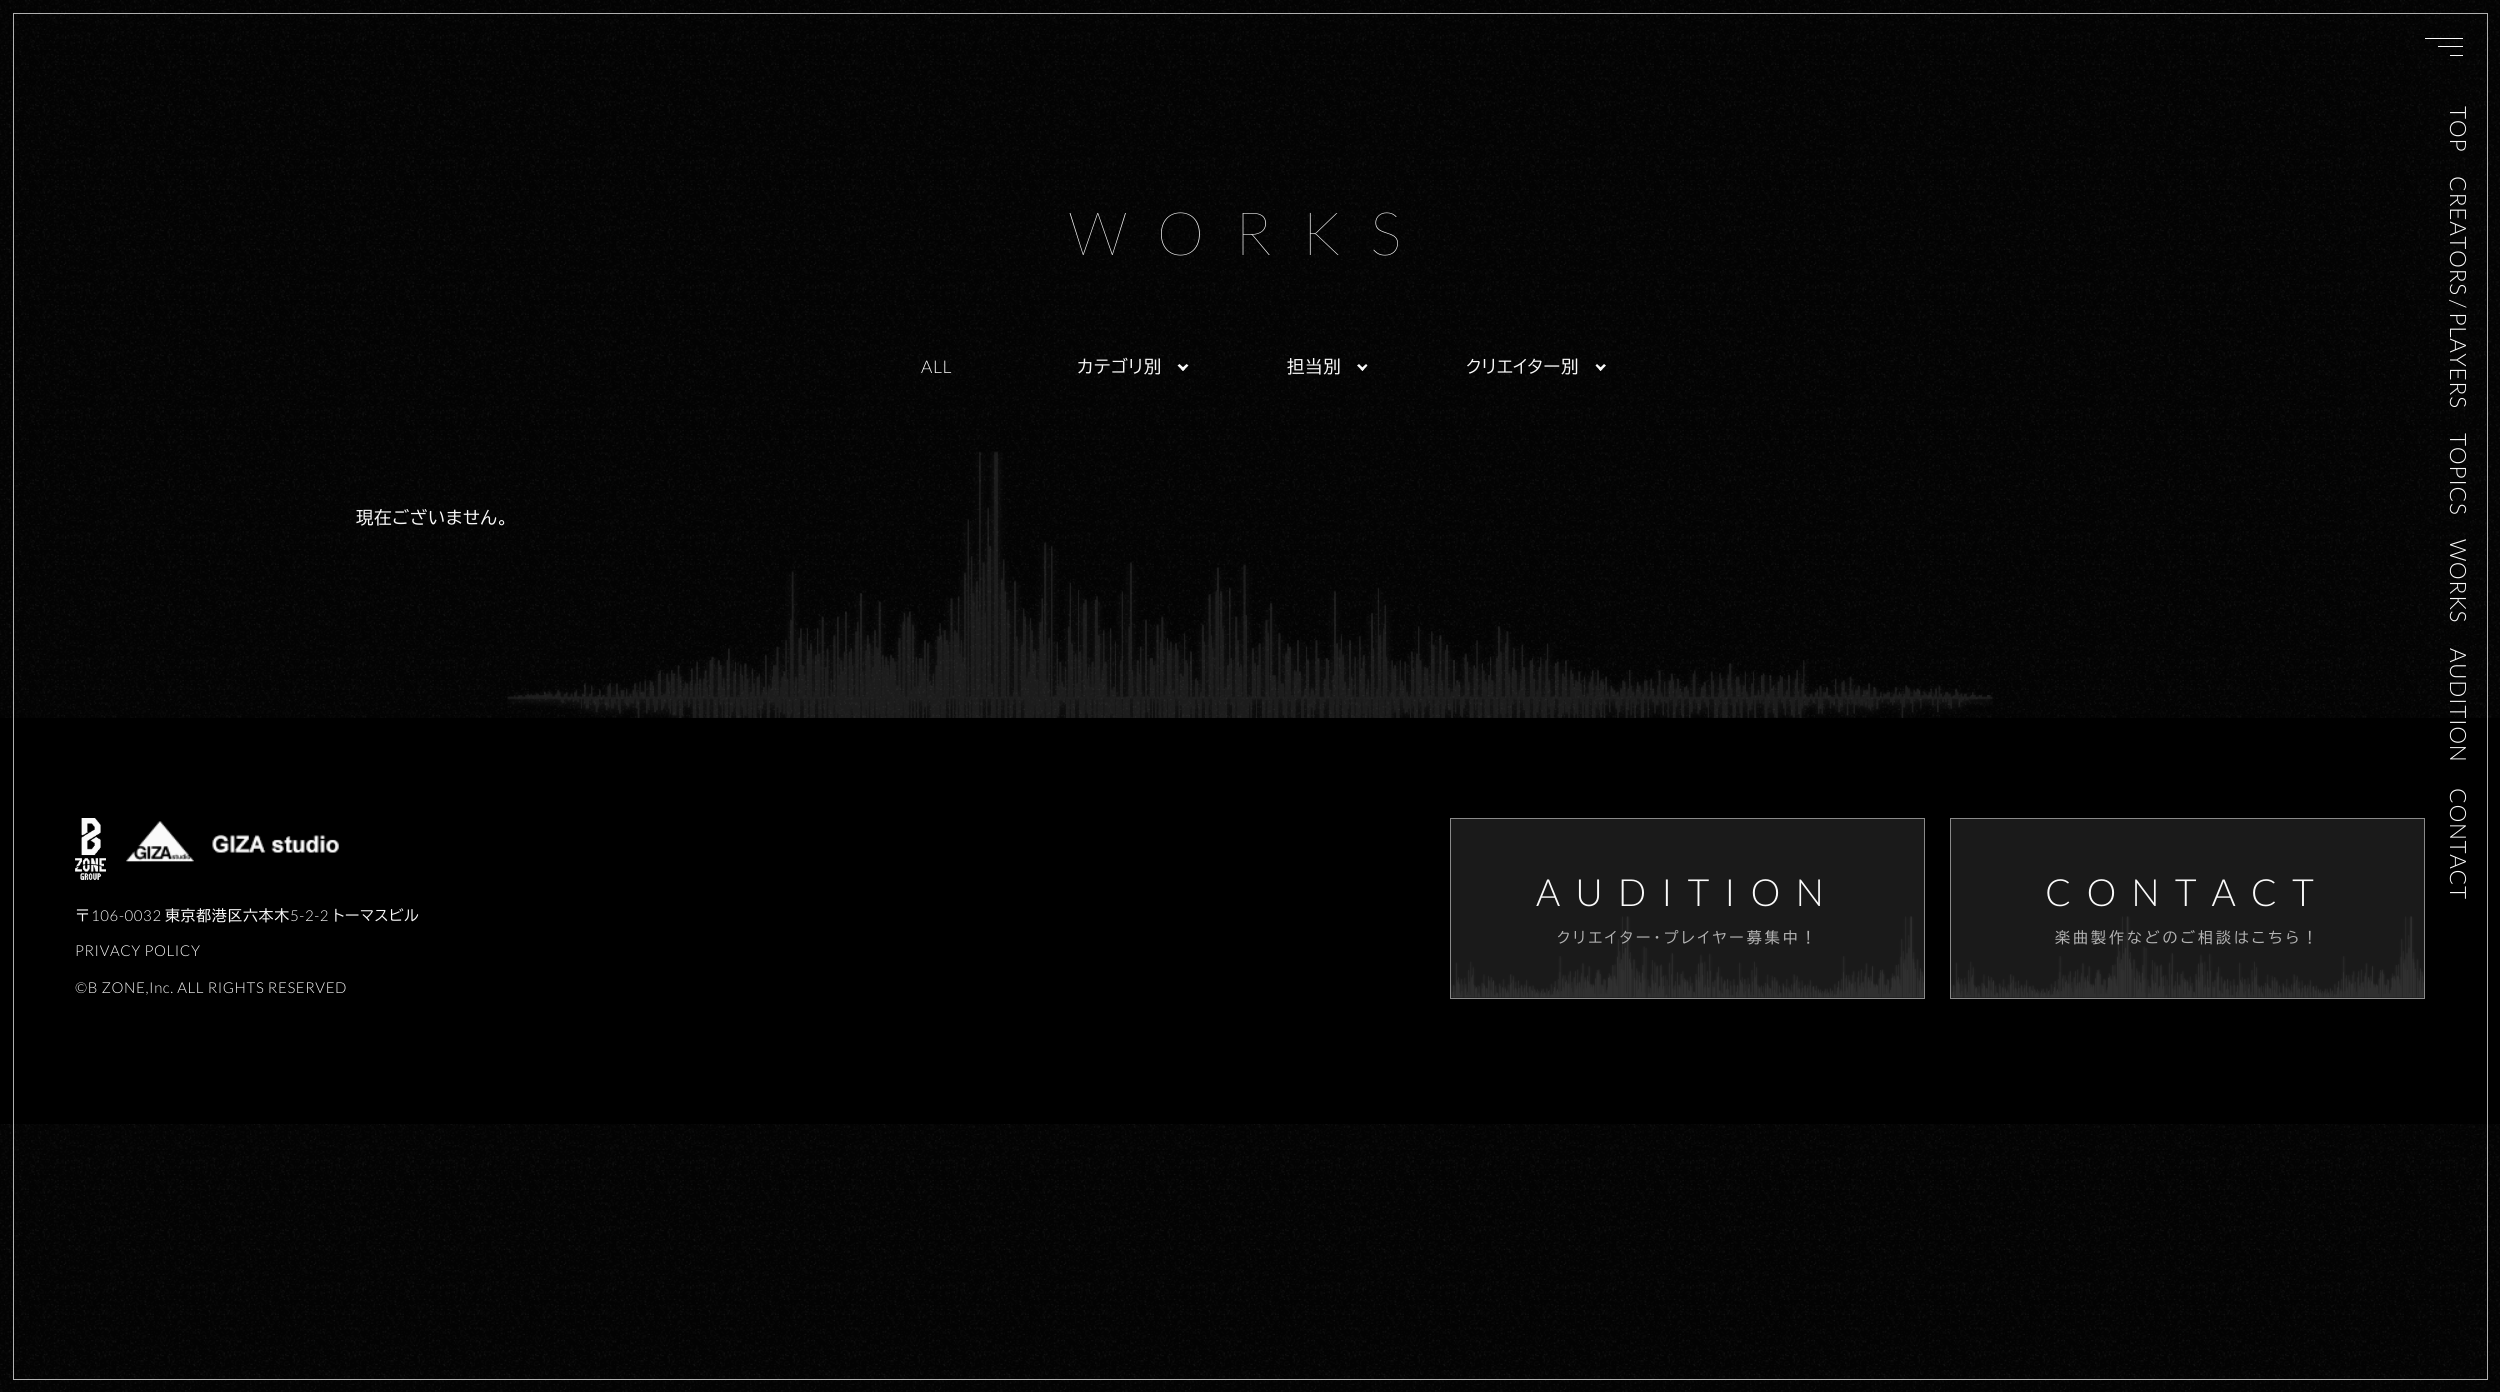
import math
import cairo


def write_spaced(ctx, x, y, s, letter, word):
	ctx.move_to(x, y)
	for ch in s:
		ctx.show_text(ch)
		ctx.rel_move_to(letter + word * (ch == ' '), 0)

def paste(ctx, path, x, y, w, h):
	ctx.save()
	ctx.set_source_surface(cairo.ImageSurface.create_from_png(path), x, y)
	ctx.rectangle(x, y, w, h)
	ctx.fill()
	ctx.restore()

def draw(ctx):
	ctx.set_source_rgb(0.012, 0.012, 0.012)
	ctx.paint()
	paste(ctx, 'media/1.png', 0, 0, 2500, 1392)
	ctx.set_source_rgb(0.98, 0.98, 0.98)
	ctx.new_path()
	ctx.move_to(1188.5, 365.5)
	ctx.line_to(1183, 371)
	ctx.line_to(1181, 369)
	ctx.line_to(1186.5, 364)
	ctx.close_path()
	ctx.fill()
	ctx.new_path()
	ctx.move_to(1185, 369)
	ctx.line_to(1183, 371)
	ctx.line_to(1177.5, 365.5)
	ctx.line_to(1179.5, 364)
	ctx.close_path()
	ctx.fill()
	ctx.new_path()
	ctx.move_to(1367.5, 365.5)
	ctx.line_to(1362.5, 371)
	ctx.line_to(1360.5, 369)
	ctx.line_to(1366, 364)
	ctx.close_path()
	ctx.fill()
	ctx.new_path()
	ctx.move_to(1364, 369)
	ctx.line_to(1362.5, 371)
	ctx.line_to(1357, 365.5)
	ctx.line_to(1359, 364)
	ctx.close_path()
	ctx.fill()
	ctx.new_path()
	ctx.move_to(1606, 365.5)
	ctx.line_to(1600.5, 371)
	ctx.line_to(1599, 369)
	ctx.line_to(1604, 364)
	ctx.close_path()
	ctx.fill()
	ctx.new_path()
	ctx.move_to(1602.5, 369)
	ctx.line_to(1600.5, 371)
	ctx.line_to(1595.5, 365.5)
	ctx.line_to(1597, 364)
	ctx.close_path()
	ctx.fill()
	ctx.set_source_rgb(0, 0, 0)
	ctx.rectangle(0, 718, 2500, 406)
	ctx.fill()
	paste(ctx, 'media/2.png', 75, 818, 31, 62)
	paste(ctx, 'media/3.png', 126, 821, 213, 41)
	ctx.set_source_rgb(0.102, 0.102, 0.102)
	ctx.rectangle(1450.5, 818.5, 474, 180)
	ctx.fill_preserve()
	ctx.set_source_rgb(0.541, 0.541, 0.541)
	ctx.set_line_width(1)
	ctx.stroke()
	paste(ctx, 'media/4.png', 1451, 916, 473, 82)
	ctx.set_source_rgb(0.102, 0.102, 0.102)
	ctx.rectangle(1950.5, 818.5, 474, 180)
	ctx.fill_preserve()
	ctx.set_source_rgb(0.541, 0.541, 0.541)
	ctx.stroke()
	paste(ctx, 'media/5.png', 1951, 916, 473, 82)
	paste(ctx, 'media/6.png', 507, 451, 1486, 267)
	ctx.rectangle(13.5, 13.5, 2474, 1366)
	ctx.set_source_rgba(0.98, 0.98, 0.98, 0.7)
	ctx.stroke()
	ctx.set_source_rgb(0.98, 0.98, 0.98)
	ctx.rectangle(2425, 38, 38, 1)
	ctx.rectangle(2438, 46, 25, 1)
	ctx.rectangle(2450, 55, 13, 1)
	ctx.fill()
	ctx.select_font_face('Lato Thin')
	ctx.set_font_size(60)
	write_spaced(ctx, 1069, 255, 'WORKS', 30, 0)
	ctx.select_font_face('Lato Light')
	ctx.set_font_size(17.5)
	write_spaced(ctx, 921, 373, 'ALL', 0.6, 0)
	ctx.select_font_face('BIZ UDPGothic')
	for x, y, s in [
		(1077, 373, 'カテゴリ別'),
		(1287, 373, '担当別'),
		(1466, 373, 'クリエイター別'),
		(356, 524, '現在ございません。'),
	]:
		write_spaced(ctx, x, y, s, 0.6, 0)
	ctx.set_font_size(15)
	write_spaced(ctx, 75, 921, '〒', 0.6, 0)
	ctx.select_font_face('Lato Light')
	write_spaced(ctx, 91, 921, '106-0032', 0.6, 0)
	ctx.select_font_face('BIZ UDPGothic')
	write_spaced(ctx, 165, 921, '東京都港区六本木', 0.6, 0)
	ctx.select_font_face('Lato Light')
	write_spaced(ctx, 290, 921, '5-2-2', 0.6, 0)
	ctx.select_font_face('BIZ UDPGothic')
	write_spaced(ctx, 333, 921, 'トーマスビル', 0.6, 0)
	ctx.select_font_face('Lato Light')
	write_spaced(ctx, 75, 956, 'PRIVACY POLICY', 0.6, 0)
	write_spaced(ctx, 75, 993, '©B ZONE,Inc. ALL RIGHTS RESERVED', 0.6, 0)
	ctx.set_font_size(37.5)
	write_spaced(ctx, 1536, 906, 'AUDITION', 15, 0)
	ctx.select_font_face('BIZ UDPGothic')
	ctx.set_font_size(15)
	ctx.set_source_rgb(0.702, 0.702, 0.702)
	write_spaced(ctx, 1557, 943, 'クリエイター・プレイヤー募集中！', 3, 0)
	ctx.select_font_face('Lato Light')
	ctx.set_font_size(37.5)
	ctx.set_source_rgb(0.98, 0.98, 0.98)
	write_spaced(ctx, 2045, 906, 'CONTACT', 15, 0)
	ctx.select_font_face('BIZ UDPGothic')
	ctx.set_font_size(15)
	ctx.set_source_rgb(0.702, 0.702, 0.702)
	write_spaced(ctx, 2055, 943, '楽曲製作などのご相談はこちら！', 3, 0)
	ctx.select_font_face('Lato Light')
	ctx.set_font_size(22.5)
	ctx.set_source_rgb(0.98, 0.98, 0.98)
	ctx.save()
	ctx.translate(2450, 106)
	ctx.rotate(90 * math.pi / 180)
	write_spaced(ctx, 0, 0, 'TOP', 0.6, 0)
	ctx.restore()
	ctx.save()
	ctx.translate(2450, 176)
	ctx.rotate(90 * math.pi / 180)
	write_spaced(ctx, 0, 0, 'CREATORS / PLAYERS', 0.6, -1)
	ctx.restore()
	ctx.save()
	ctx.translate(2450, 433)
	ctx.rotate(90 * math.pi / 180)
	write_spaced(ctx, 0, 0, 'TOPICS', 0.6, 0)
	ctx.restore()
	ctx.save()
	ctx.translate(2450, 539)
	ctx.rotate(90 * math.pi / 180)
	write_spaced(ctx, 0, 0, 'WORKS', 0.6, 0)
	ctx.restore()
	ctx.save()
	ctx.translate(2450, 648)
	ctx.rotate(90 * math.pi / 180)
	write_spaced(ctx, 0, 0, 'AUDITION', 0.6, 0)
	ctx.restore()
	ctx.save()
	ctx.translate(2450, 788)
	ctx.rotate(90 * math.pi / 180)
	write_spaced(ctx, 0, 0, 'CONTACT', 0.6, 0)
	ctx.restore()


surface = cairo.ImageSurface(cairo.FORMAT_RGB24, 2500, 1392)
ctx = cairo.Context(surface)
options = cairo.FontOptions()
options.set_hint_metrics(cairo.HINT_METRICS_OFF)
options.set_hint_style(cairo.HINT_STYLE_NONE)
ctx.set_font_options(options)
ctx.set_miter_limit(4)
draw(ctx)
surface.write_to_png('image.png')
